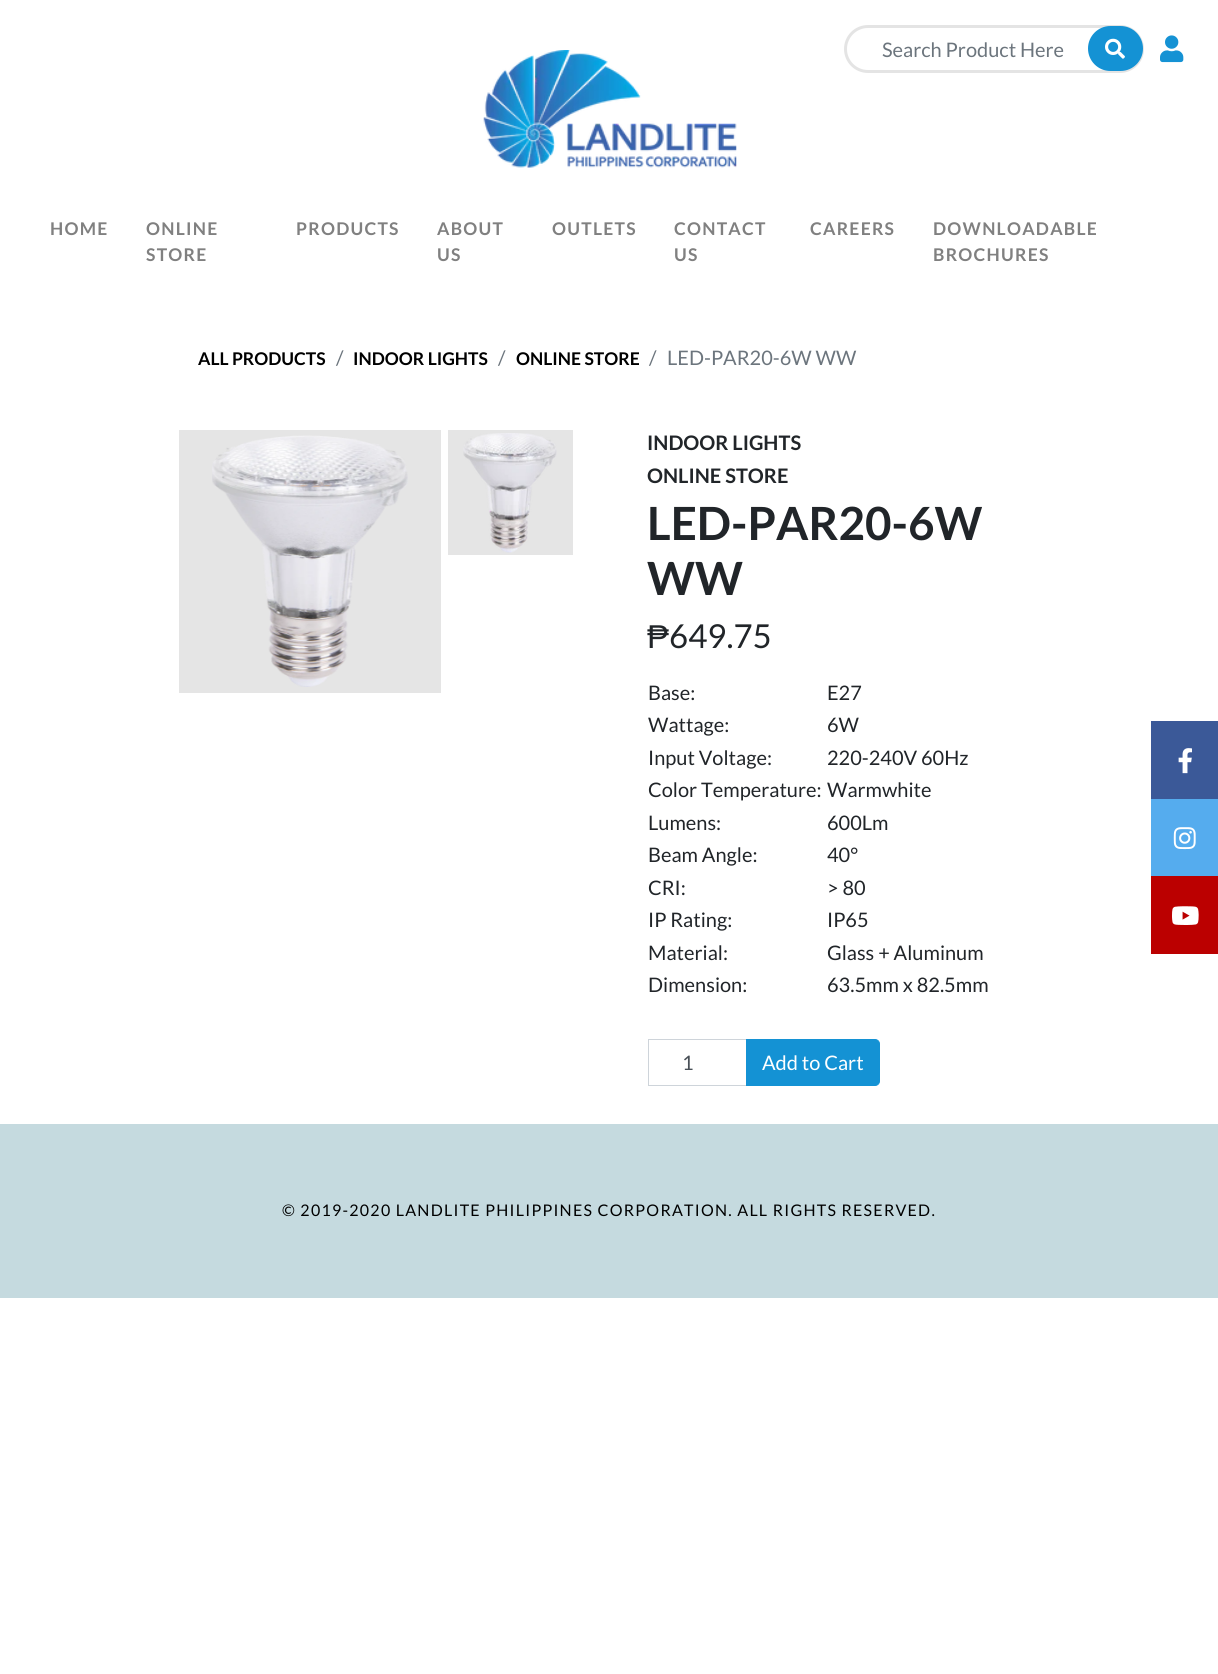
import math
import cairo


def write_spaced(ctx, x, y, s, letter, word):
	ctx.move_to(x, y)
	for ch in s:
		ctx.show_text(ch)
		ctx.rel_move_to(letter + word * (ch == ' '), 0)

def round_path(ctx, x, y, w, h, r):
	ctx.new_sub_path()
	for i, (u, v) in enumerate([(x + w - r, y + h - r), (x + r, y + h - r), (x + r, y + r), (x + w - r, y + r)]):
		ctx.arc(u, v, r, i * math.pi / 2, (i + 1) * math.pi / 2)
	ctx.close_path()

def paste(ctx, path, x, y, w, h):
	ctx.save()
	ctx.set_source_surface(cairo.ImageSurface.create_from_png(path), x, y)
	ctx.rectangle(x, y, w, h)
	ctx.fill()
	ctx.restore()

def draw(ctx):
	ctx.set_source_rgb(1, 1, 1)
	ctx.paint()
	paste(ctx, 'media/1.png', 483, 50, 254, 118)
	round_path(ctx, 845.5, 26.5, 297, 45, 22.5)
	ctx.set_source_rgb(0.894, 0.894, 0.894)
	ctx.set_line_width(3)
	ctx.stroke()
	ctx.select_font_face('Lato')
	ctx.set_font_size(20)
	ctx.set_source_rgb(0.424, 0.459, 0.49)
	ctx.move_to(882, 57)
	ctx.show_text('Search Product Here')
	ctx.set_source_rgb(0.082, 0.573, 0.831)
	round_path(ctx, 1088, 26, 55, 45, 22.5)
	ctx.fill()
	paste(ctx, 'media/2.png', 1105, 38, 20, 21)
	paste(ctx, 'media/3.png', 1160, 35, 24, 28)
	ctx.select_font_face('Lato', cairo.FONT_SLANT_NORMAL, cairo.FONT_WEIGHT_BOLD)
	ctx.set_font_size(17.5)
	ctx.set_source_rgb(0.502, 0.502, 0.502)
	for x, y, s in [
		(50, 235, 'HOME'),
		(146, 235, 'ONLINE'),
		(146, 261, 'STORE'),
		(296, 235, 'PRODUCTS'),
		(437, 235, 'ABOUT'),
		(437, 261, 'US'),
		(552, 235, 'OUTLETS'),
		(674, 235, 'CONTACT'),
		(674, 261, 'US'),
		(810, 235, 'CAREERS'),
		(933, 235, 'DOWNLOADABLE'),
		(933, 261, 'BROCHURES'),
	]:
		write_spaced(ctx, x, y, s, 1.25, 0)
	ctx.set_source_rgb(0, 0, 0)
	ctx.move_to(198, 365)
	ctx.show_text('ALL PRODUCTS')
	ctx.select_font_face('Lato')
	ctx.set_font_size(20)
	ctx.set_source_rgb(0.424, 0.459, 0.49)
	ctx.move_to(336, 365)
	ctx.show_text('/')
	ctx.select_font_face('Lato', cairo.FONT_SLANT_NORMAL, cairo.FONT_WEIGHT_BOLD)
	ctx.set_font_size(17.5)
	ctx.set_source_rgb(0, 0, 0)
	ctx.move_to(353, 365)
	ctx.show_text('INDOOR LIGHTS')
	ctx.select_font_face('Lato')
	ctx.set_font_size(20)
	ctx.set_source_rgb(0.424, 0.459, 0.49)
	ctx.move_to(498, 365)
	ctx.show_text('/')
	ctx.select_font_face('Lato', cairo.FONT_SLANT_NORMAL, cairo.FONT_WEIGHT_BOLD)
	ctx.set_font_size(17.5)
	ctx.set_source_rgb(0, 0, 0)
	ctx.move_to(516, 365)
	ctx.show_text('ONLINE STORE')
	ctx.select_font_face('Lato')
	ctx.set_font_size(20)
	ctx.set_source_rgb(0.424, 0.459, 0.49)
	ctx.move_to(649, 365)
	ctx.show_text('/')
	ctx.move_to(667, 365)
	ctx.show_text('LED-PAR20-6W WW')
	ctx.set_source_rgb(0.898, 0.898, 0.898)
	ctx.rectangle(179, 430, 262, 263)
	ctx.fill()
	paste(ctx, 'media/4.png', 212, 435, 196, 252)
	ctx.rectangle(448, 430, 125, 125)
	ctx.fill()
	paste(ctx, 'media/5.png', 463, 433, 94, 120)
	ctx.select_font_face('Lato', cairo.FONT_SLANT_NORMAL, cairo.FONT_WEIGHT_BOLD)
	ctx.set_source_rgb(0.129, 0.145, 0.161)
	ctx.move_to(647, 450)
	ctx.show_text('INDOOR LIGHTS')
	ctx.move_to(647, 483)
	ctx.show_text('ONLINE STORE')
	ctx.set_font_size(45.75)
	ctx.move_to(647, 540)
	ctx.show_text('LED-PAR20-6W')
	ctx.move_to(647, 595)
	ctx.show_text('WW')
	ctx.select_font_face('Liberation Sans')
	ctx.set_font_size(33)
	ctx.move_to(647, 648)
	ctx.show_text('₱')
	ctx.select_font_face('Lato')
	ctx.move_to(669, 648)
	ctx.show_text('649.75')
	ctx.set_font_size(20)
	for x, y, s in [
		(648, 700, 'Base:'),
		(827, 700, 'E27'),
		(648, 732, 'Wattage:'),
		(827, 732, '6W'),
		(648, 765, 'Input Voltage:'),
		(827, 765, '220-240V 60Hz'),
		(648, 797, 'Color Temperature:'),
		(827, 797, 'Warmwhite'),
		(648, 830, 'Lumens:'),
		(827, 830, '600Lm'),
		(648, 862, 'Beam Angle:'),
		(827, 862, '40°'),
		(648, 895, 'CRI:'),
		(827, 895, '> 80'),
		(648, 927, 'IP Rating:'),
		(827, 927, 'IP65'),
		(648, 960, 'Material:'),
		(827, 960, 'Glass + Aluminum'),
		(648, 992, 'Dimension:'),
		(827, 992, '63.5mm x 82.5mm'),
	]:
		ctx.move_to(x, y)
		ctx.show_text(s)
	ctx.rectangle(648.5, 1039.5, 99, 46)
	ctx.set_source_rgb(0.808, 0.831, 0.855)
	ctx.set_line_width(1)
	ctx.stroke()
	ctx.set_source_rgb(0.286, 0.314, 0.341)
	ctx.move_to(682, 1070)
	ctx.show_text('1')
	ctx.set_source_rgb(0.082, 0.573, 0.831)
	ctx.new_path()
	ctx.move_to(746.5, 1039.5)
	ctx.line_to(875, 1039.5)
	ctx.curve_to(877.5, 1039.5, 879.5, 1041.5, 879.5, 1044)
	ctx.line_to(879.5, 1081)
	ctx.curve_to(879.5, 1083.5, 877.5, 1085.5, 875, 1085.5)
	ctx.line_to(746.5, 1085.5)
	ctx.close_path()
	ctx.fill_preserve()
	ctx.stroke()
	ctx.set_source_rgb(1, 1, 1)
	ctx.move_to(762, 1070)
	ctx.show_text('Add to Cart')
	ctx.set_source_rgb(0.773, 0.855, 0.875)
	ctx.rectangle(0, 1124, 1218, 174)
	ctx.fill()
	ctx.set_font_size(16)
	ctx.set_source_rgb(0, 0, 0)
	write_spaced(ctx, 282, 1216, '© 2019-2020 LANDLITE PHILIPPINES CORPORATION. ALL RIGHTS RESERVED.', 1.25, 0)
	ctx.set_source_rgb(0.231, 0.349, 0.596)
	ctx.rectangle(1151, 721, 67, 78)
	ctx.fill()
	paste(ctx, 'media/6.png', 1178, 748, 14, 26)
	ctx.set_source_rgb(0.333, 0.675, 0.933)
	ctx.rectangle(1151, 799, 67, 77)
	ctx.fill()
	paste(ctx, 'media/7.png', 1173, 827, 23, 23)
	ctx.set_source_rgb(0.733, 0, 0)
	ctx.rectangle(1151, 876, 67, 78)
	ctx.fill()
	paste(ctx, 'media/8.png', 1172, 906, 27, 19)


surface = cairo.ImageSurface(cairo.FORMAT_RGB24, 1218, 1674)
ctx = cairo.Context(surface)
options = cairo.FontOptions()
options.set_hint_metrics(cairo.HINT_METRICS_OFF)
options.set_hint_style(cairo.HINT_STYLE_NONE)
ctx.set_font_options(options)
ctx.set_miter_limit(4)
draw(ctx)
surface.write_to_png('image.png')
